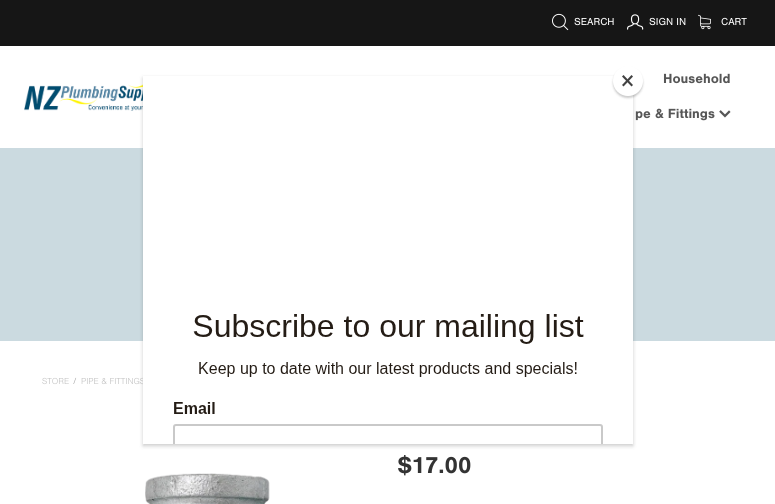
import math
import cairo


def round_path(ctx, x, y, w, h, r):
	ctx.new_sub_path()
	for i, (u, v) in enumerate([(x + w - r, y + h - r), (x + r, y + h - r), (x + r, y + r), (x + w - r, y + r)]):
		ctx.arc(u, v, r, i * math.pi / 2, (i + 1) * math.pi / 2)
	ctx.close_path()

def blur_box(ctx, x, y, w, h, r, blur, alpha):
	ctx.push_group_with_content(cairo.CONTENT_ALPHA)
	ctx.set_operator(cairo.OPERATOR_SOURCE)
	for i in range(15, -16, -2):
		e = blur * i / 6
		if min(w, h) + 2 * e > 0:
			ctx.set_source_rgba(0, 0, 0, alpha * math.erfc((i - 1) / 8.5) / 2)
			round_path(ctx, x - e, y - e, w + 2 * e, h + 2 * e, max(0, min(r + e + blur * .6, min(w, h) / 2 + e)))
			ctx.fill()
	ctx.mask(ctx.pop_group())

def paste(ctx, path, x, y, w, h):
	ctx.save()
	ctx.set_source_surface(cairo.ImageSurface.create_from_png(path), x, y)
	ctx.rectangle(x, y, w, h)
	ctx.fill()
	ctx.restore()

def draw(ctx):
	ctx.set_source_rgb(1, 1, 1)
	ctx.paint()
	ctx.set_source_rgb(0.086, 0.086, 0.086)
	ctx.rectangle(0, 0, 775, 46)
	ctx.fill()
	paste(ctx, 'media/1.png', 552, 13, 17, 18)
	ctx.select_font_face('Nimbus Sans')
	ctx.set_font_size(10.5)
	ctx.set_source_rgb(1, 1, 1)
	ctx.move_to(574, 25)
	ctx.show_text('SEARCH')
	paste(ctx, 'media/2.png', 627, 14, 17, 16)
	ctx.move_to(649, 25)
	ctx.show_text('SIGN IN')
	paste(ctx, 'media/3.png', 698, 14, 13, 16)
	ctx.move_to(721, 25)
	ctx.show_text('CART')
	paste(ctx, 'media/4.png', 24, 82, 119, 29)
	ctx.select_font_face('Nimbus Sans', cairo.FONT_SLANT_NORMAL, cairo.FONT_WEIGHT_BOLD)
	ctx.set_font_size(13.75)
	ctx.set_source_rgb(0.337, 0.337, 0.337)
	ctx.move_to(663, 83)
	ctx.show_text('Household')
	ctx.move_to(635, 118)
	ctx.show_text('pe & Fittings')
	paste(ctx, 'media/5.png', 719, 110, 12, 8)
	ctx.set_source_rgb(0.796, 0.855, 0.878)
	ctx.rectangle(0, 148, 775, 193)
	ctx.fill()
	ctx.select_font_face('Nimbus Sans Light')
	ctx.set_font_size(9)
	ctx.set_source_rgb(0.757, 0.757, 0.757)
	ctx.move_to(42, 384)
	ctx.show_text('STORE')
	ctx.set_source_rgb(0.6, 0.6, 0.6)
	ctx.move_to(73, 384)
	ctx.show_text('/')
	ctx.set_source_rgb(0.757, 0.757, 0.757)
	ctx.move_to(81, 384)
	ctx.show_text('PIPE & FITTINGS')
	ctx.select_font_face('Nimbus Sans', cairo.FONT_SLANT_NORMAL, cairo.FONT_WEIGHT_BOLD)
	ctx.set_font_size(24)
	ctx.set_source_rgb(0.2, 0.2, 0.2)
	ctx.move_to(398, 473)
	ctx.show_text('$17.00')
	paste(ctx, 'media/6.png', 145, 473, 125, 31)
	ctx.set_source_rgb(0, 0, 0)
	blur_box(ctx, 143, 78, 490, 368, 0, 2, 0.2)
	paste(ctx, 'media/7.png', 143, 76, 490, 368)
	blur_box(ctx, 613, 68, 30, 30, 15, 1, 0.2)
	ctx.set_source_rgb(1, 1, 1)
	ctx.arc(628, 81, 15, 0, 2 * math.pi)
	ctx.fill()
	ctx.set_source_rgb(0.255, 0.255, 0.255)
	ctx.new_path()
	ctx.move_to(631.5, 75)
	ctx.line_to(633, 76.5)
	ctx.line_to(623.5, 86.5)
	ctx.line_to(622, 85)
	ctx.close_path()
	ctx.fill()
	ctx.new_path()
	ctx.move_to(622, 76.5)
	ctx.line_to(623.5, 75)
	ctx.line_to(633, 85)
	ctx.line_to(631.5, 86.5)
	ctx.close_path()
	ctx.fill()


surface = cairo.ImageSurface(cairo.FORMAT_RGB24, 775, 504)
ctx = cairo.Context(surface)
options = cairo.FontOptions()
options.set_hint_metrics(cairo.HINT_METRICS_OFF)
options.set_hint_style(cairo.HINT_STYLE_NONE)
ctx.set_font_options(options)
ctx.set_miter_limit(4)
draw(ctx)
surface.write_to_png('image.png')
